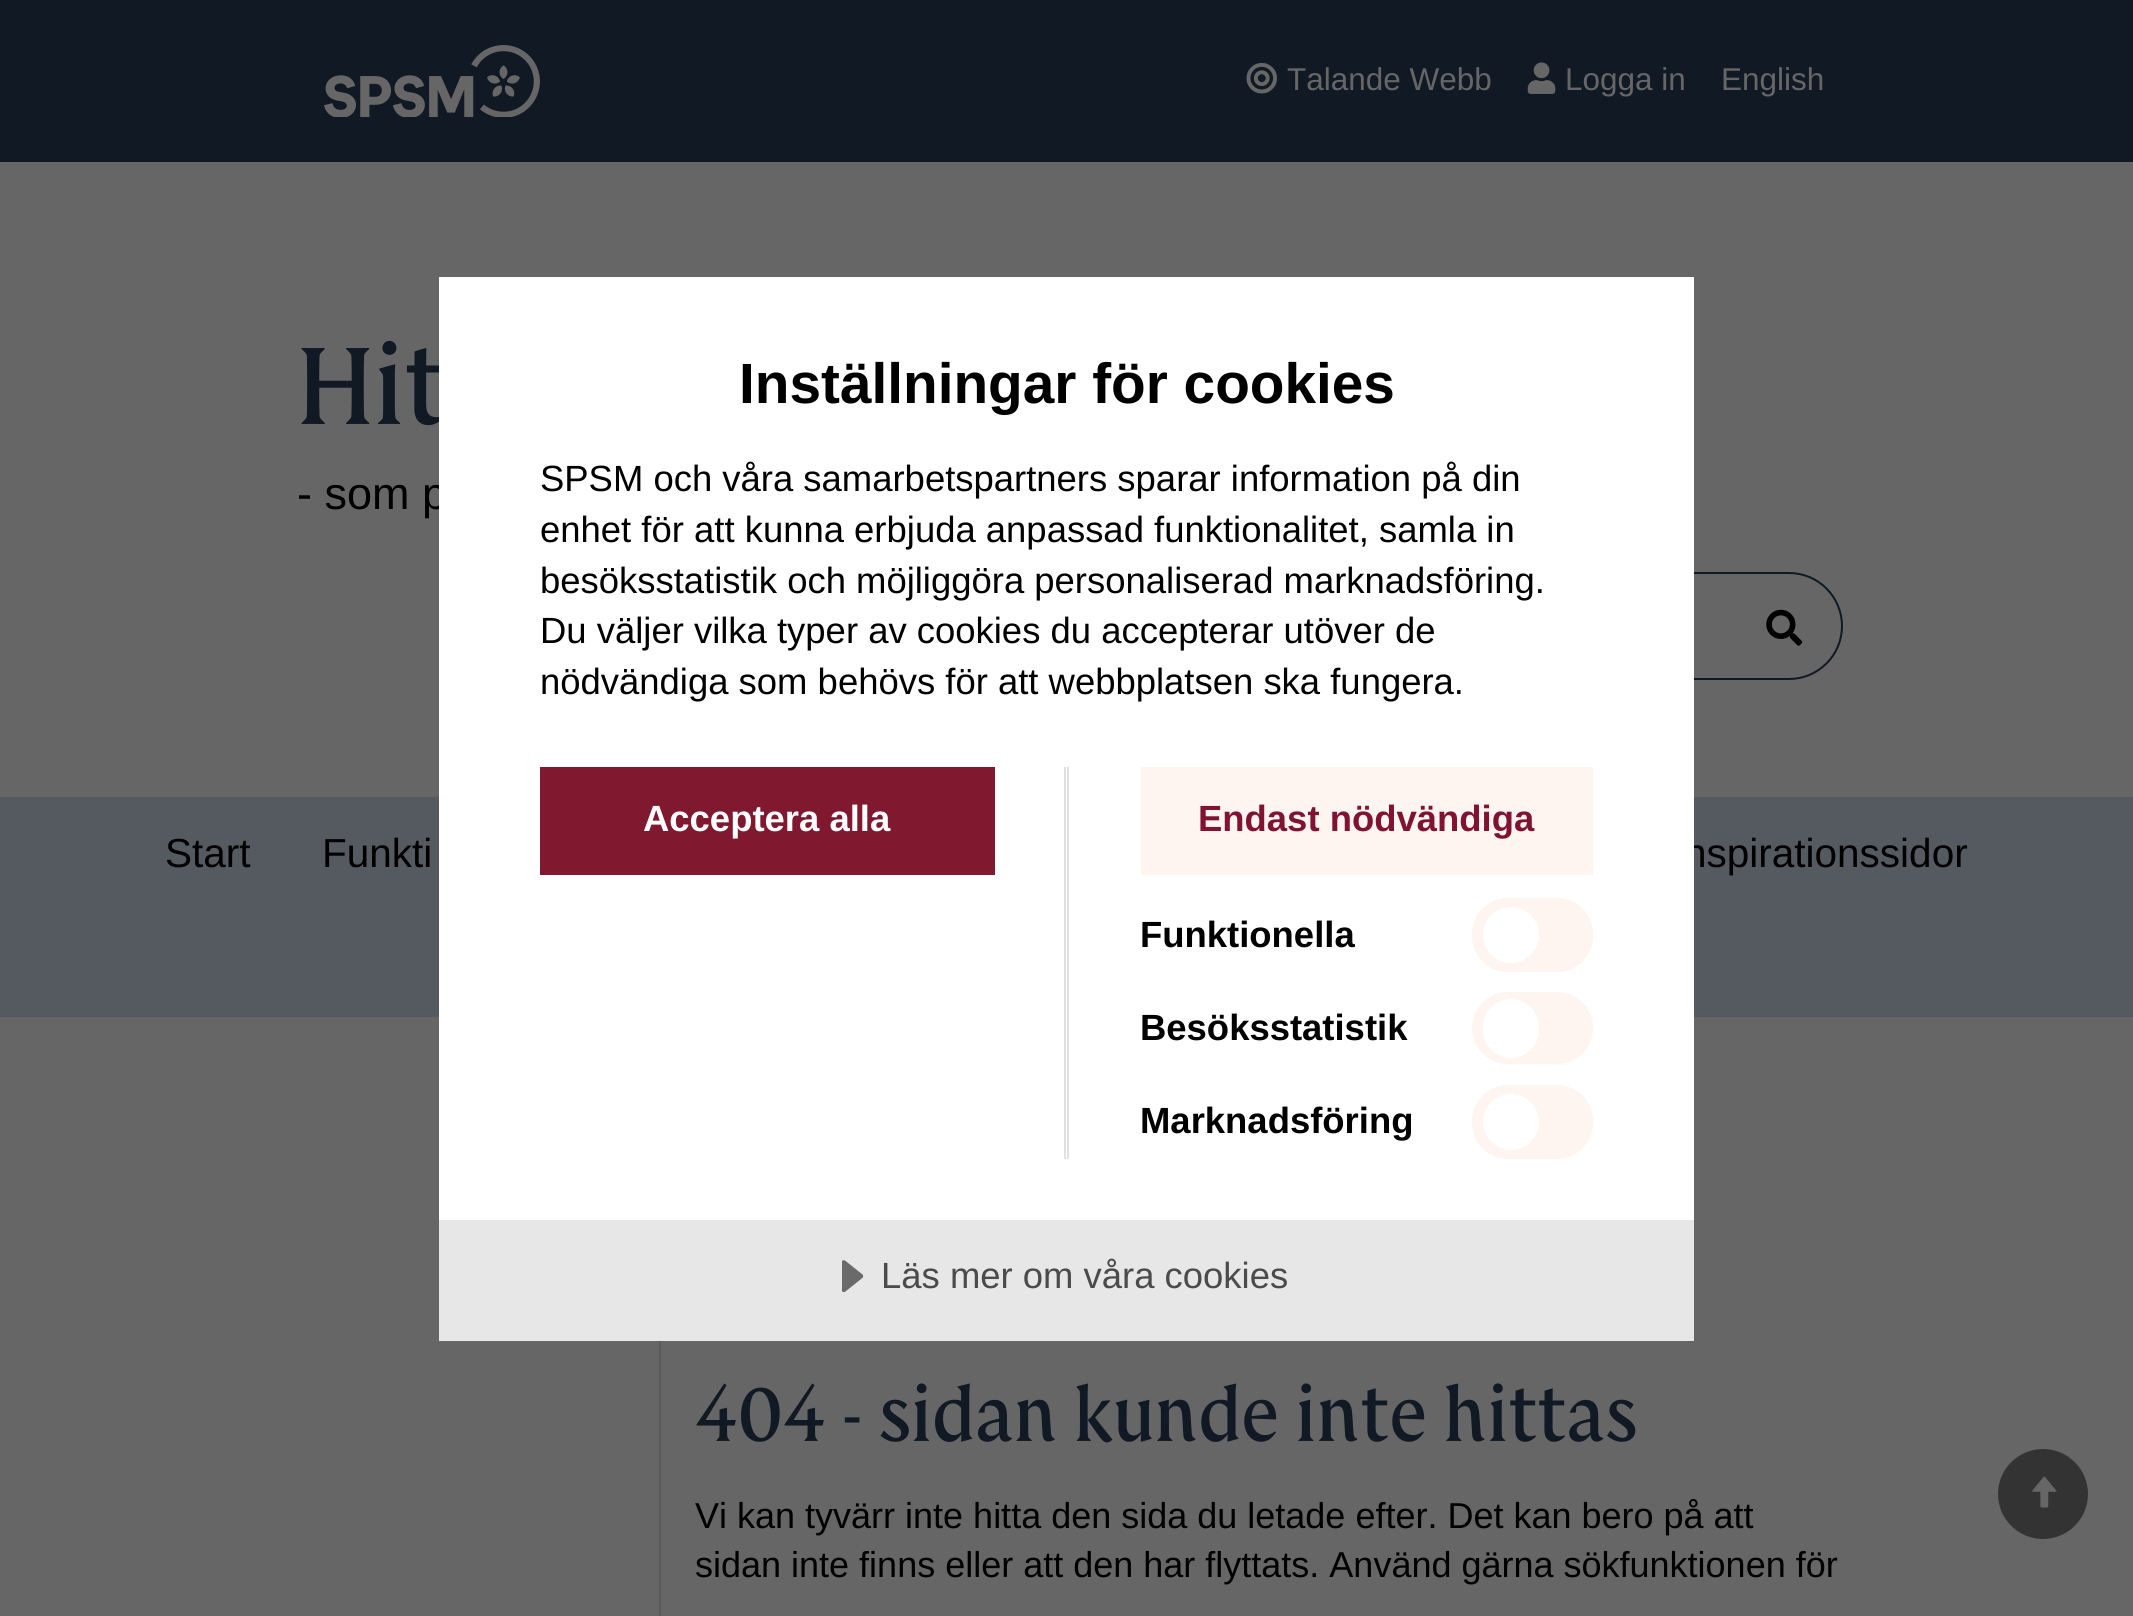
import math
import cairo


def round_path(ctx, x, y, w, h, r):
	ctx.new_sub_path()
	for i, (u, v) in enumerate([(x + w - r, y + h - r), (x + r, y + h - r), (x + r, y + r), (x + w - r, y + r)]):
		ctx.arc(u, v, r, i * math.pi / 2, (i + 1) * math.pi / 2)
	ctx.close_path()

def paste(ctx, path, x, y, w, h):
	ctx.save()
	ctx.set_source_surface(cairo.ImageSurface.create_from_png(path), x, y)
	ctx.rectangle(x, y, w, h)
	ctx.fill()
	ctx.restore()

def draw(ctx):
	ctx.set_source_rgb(0.4, 0.4, 0.4)
	ctx.paint()
	ctx.set_source_rgb(0.063, 0.098, 0.141)
	ctx.rectangle(0, 0, 2133, 162)
	ctx.fill()
	paste(ctx, 'media/1.png', 324, 45, 216, 72)
	paste(ctx, 'media/2.png', 1246, 62, 31, 32)
	ctx.select_font_face('Liberation Sans')
	ctx.set_font_size(31.5)
	ctx.set_source_rgb(0.4, 0.4, 0.4)
	ctx.move_to(1287, 90)
	ctx.show_text('Talande Webb')
	paste(ctx, 'media/3.png', 1527, 62, 29, 32)
	ctx.move_to(1565, 90)
	ctx.show_text('Logga in')
	ctx.move_to(1721, 90)
	ctx.show_text('English')
	ctx.select_font_face('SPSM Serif')
	ctx.set_font_size(117)
	ctx.set_source_rgb(0.063, 0.098, 0.141)
	ctx.move_to(297, 424)
	ctx.show_text('Hit')
	ctx.select_font_face('Liberation Sans')
	ctx.set_font_size(45)
	ctx.set_source_rgb(0, 0, 0)
	ctx.move_to(297, 509)
	ctx.show_text('- som p')
	round_path(ctx, 620, 573, 1222, 106, 53)
	ctx.set_source_rgb(0.063, 0.098, 0.141)
	ctx.stroke()
	paste(ctx, 'media/4.png', 1766, 609, 37, 37)
	ctx.set_source_rgb(0.333, 0.353, 0.376)
	ctx.rectangle(0, 797, 2133, 220)
	ctx.fill()
	ctx.set_font_size(40.5)
	ctx.set_source_rgb(0, 0, 0)
	for x, y, s in [
		(165, 867, 'Start'),
		(322, 867, 'Funkti'),
		(1684, 867, 'nspirationssidor'),
	]:
		ctx.move_to(x, y)
		ctx.show_text(s)
	ctx.set_source_rgb(1, 1, 1)
	ctx.rectangle(439, 277, 1255, 943)
	ctx.fill()
	ctx.select_font_face('Liberation Sans', cairo.FONT_SLANT_NORMAL, cairo.FONT_WEIGHT_BOLD)
	ctx.set_font_size(56.75)
	ctx.set_source_rgb(0, 0, 0)
	ctx.move_to(739, 403)
	ctx.show_text('Inställningar för cookies')
	ctx.select_font_face('Liberation Sans')
	ctx.set_font_size(36.45)
	for x, y, s in [
		(540, 491, 'SPSM och våra samarbetspartners sparar information på din'),
		(540, 542, 'enhet för att kunna erbjuda anpassad funktionalitet, samla in'),
		(540, 593, 'besöksstatistik och möjliggöra personaliserad marknadsföring.'),
		(540, 643, 'Du väljer vilka typer av cookies du accepterar utöver de'),
		(540, 694, 'nödvändiga som behövs för att webbplatsen ska fungera.'),
	]:
		ctx.move_to(x, y)
		ctx.show_text(s)
	ctx.set_source_rgb(0.878, 0.878, 0.878)
	ctx.rectangle(1064, 767, 2, 392)
	ctx.fill()
	ctx.set_source_rgb(0.502, 0.098, 0.184)
	ctx.rectangle(540, 767, 455, 108)
	ctx.fill()
	ctx.select_font_face('Liberation Sans', cairo.FONT_SLANT_NORMAL, cairo.FONT_WEIGHT_BOLD)
	ctx.set_source_rgb(1, 1, 1)
	ctx.move_to(643, 831)
	ctx.show_text('Acceptera alla')
	ctx.set_source_rgb(0.878, 0.878, 0.878)
	ctx.rectangle(1067, 767, 2, 392)
	ctx.fill()
	ctx.set_source_rgb(0.996, 0.957, 0.941)
	ctx.rectangle(1141, 767, 452, 108)
	ctx.fill()
	ctx.set_source_rgb(0.502, 0.078, 0.192)
	ctx.move_to(1198, 831)
	ctx.show_text('Endast nödvändiga')
	ctx.set_source_rgb(0, 0, 0)
	ctx.move_to(1140, 947)
	ctx.show_text('Funktionella')
	ctx.set_source_rgb(0.996, 0.957, 0.941)
	round_path(ctx, 1472, 898, 121, 74, 36)
	ctx.fill()
	ctx.set_source_rgb(1, 1, 1)
	ctx.arc(1511, 935, 28, 0, 2 * math.pi)
	ctx.fill()
	ctx.set_source_rgb(0, 0, 0)
	ctx.move_to(1140, 1040)
	ctx.show_text('Besöksstatistik')
	ctx.set_source_rgb(0.996, 0.957, 0.941)
	round_path(ctx, 1472, 992, 121, 72, 36)
	ctx.fill()
	ctx.set_source_rgb(1, 1, 1)
	round_path(ctx, 1483, 999, 56, 59, 28)
	ctx.fill()
	ctx.set_source_rgb(0, 0, 0)
	ctx.move_to(1140, 1133)
	ctx.show_text('Marknadsföring')
	ctx.set_source_rgb(0.996, 0.957, 0.941)
	round_path(ctx, 1472, 1085, 121, 74, 36)
	ctx.fill()
	ctx.set_source_rgb(1, 1, 1)
	ctx.arc(1511, 1122, 28, 0, 2 * math.pi)
	ctx.fill()
	ctx.set_source_rgb(0.906, 0.906, 0.906)
	ctx.rectangle(439, 1220, 1255, 121)
	ctx.fill()
	paste(ctx, 'media/5.png', 842, 1260, 22, 32)
	ctx.select_font_face('Liberation Sans')
	ctx.set_source_rgb(0.294, 0.294, 0.294)
	ctx.move_to(881, 1288)
	ctx.show_text('Läs mer om våra cookies')
	ctx.set_source_rgb(0.361, 0.353, 0.349)
	ctx.rectangle(659, 1341, 2, 275)
	ctx.fill()
	ctx.select_font_face('SPSM Serif')
	ctx.set_font_size(81)
	ctx.set_source_rgb(0.063, 0.098, 0.141)
	ctx.move_to(695, 1441)
	ctx.show_text('404 - sidan kunde inte hittas')
	ctx.select_font_face('Liberation Sans')
	ctx.set_font_size(36)
	ctx.set_source_rgb(0, 0, 0)
	ctx.move_to(695, 1528)
	ctx.show_text('Vi kan tyvärr inte hitta den sida du letade efter. Det kan bero på att')
	ctx.move_to(695, 1577)
	ctx.show_text('sidan inte finns eller att den har flyttats. Använd gärna sökfunktionen för')
	ctx.set_source_rgb(0.2, 0.2, 0.2)
	ctx.new_path()
	ctx.arc(2043, 1494, 45, 0, 2 * math.pi)
	ctx.fill()
	paste(ctx, 'media/6.png', 2032, 1476, 25, 32)


surface = cairo.ImageSurface(cairo.FORMAT_RGB24, 2133, 1616)
ctx = cairo.Context(surface)
options = cairo.FontOptions()
options.set_hint_metrics(cairo.HINT_METRICS_OFF)
options.set_hint_style(cairo.HINT_STYLE_NONE)
ctx.set_font_options(options)
ctx.set_miter_limit(4)
draw(ctx)
surface.write_to_png('image.png')
